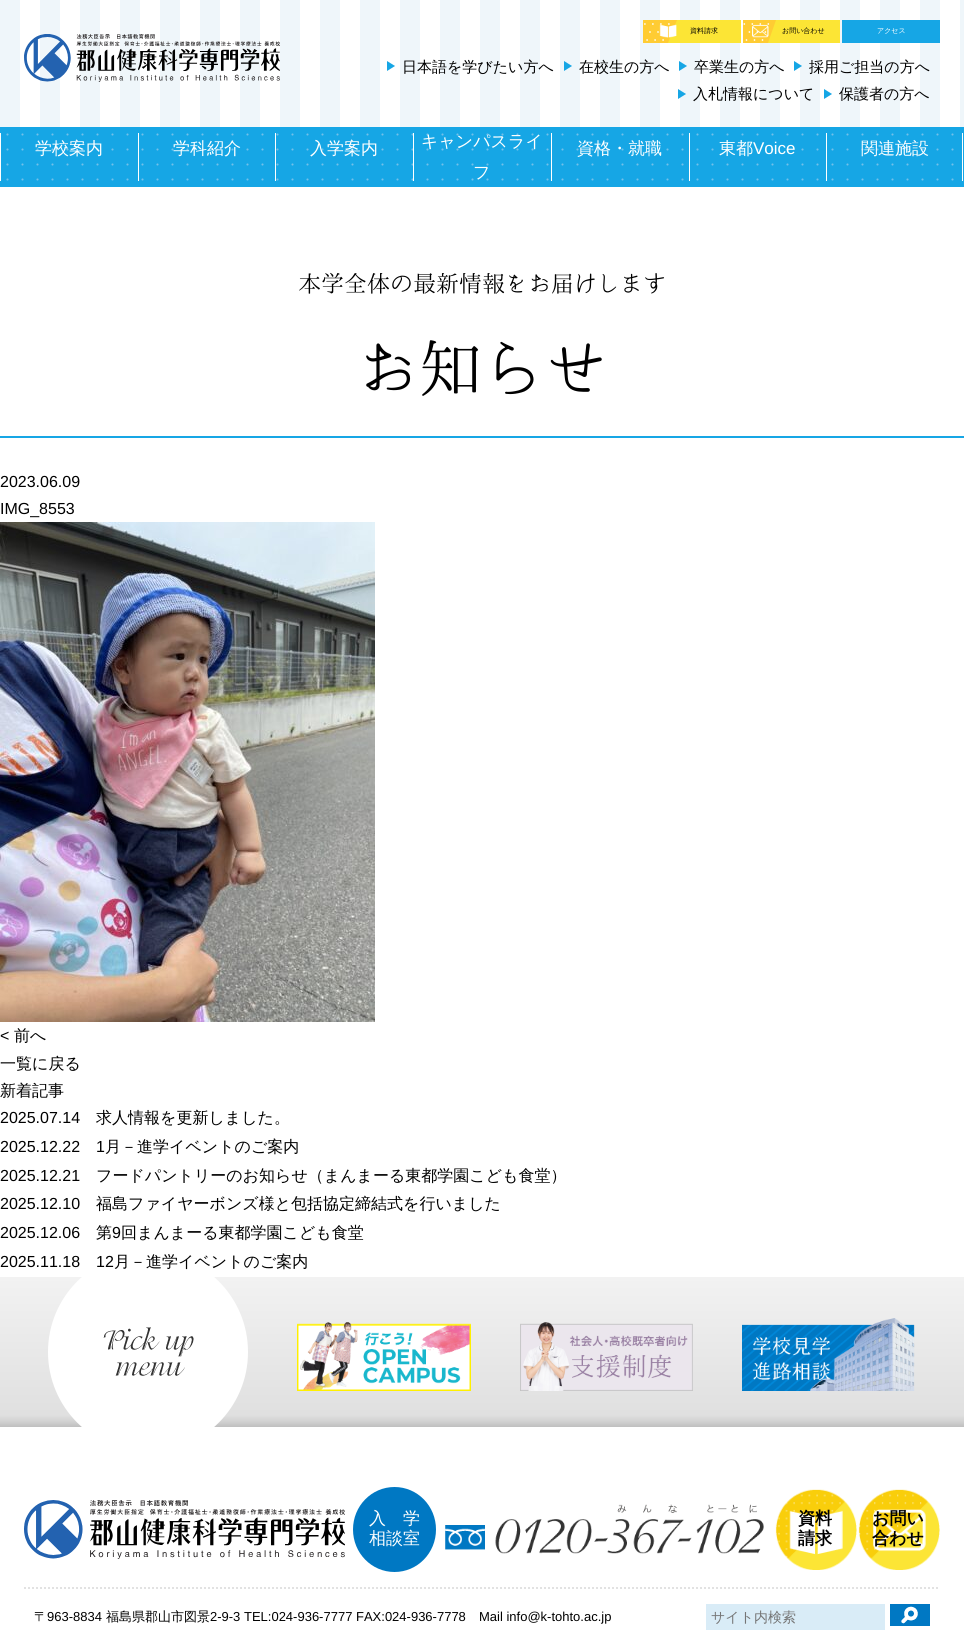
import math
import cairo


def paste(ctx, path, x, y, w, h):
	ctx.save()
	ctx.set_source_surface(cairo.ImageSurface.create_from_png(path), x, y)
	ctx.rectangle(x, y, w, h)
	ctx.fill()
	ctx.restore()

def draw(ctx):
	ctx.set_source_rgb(1, 1, 1)
	ctx.paint()
	paste(ctx, 'media/1.png', 0, 0, 964, 127)
	paste(ctx, 'media/2.png', 24, 34, 256, 48)
	ctx.set_source_rgb(0.988, 0.898, 0.208)
	ctx.rectangle(668, 20, 73, 23)
	ctx.fill()
	ctx.save()
	ctx.rectangle(643, 20, 98, 23)
	ctx.clip()
	ctx.set_source_rgb(1, 0.8, 0.2)
	ctx.new_path()
	ctx.move_to(642, 20)
	ctx.line_to(677, 20)
	ctx.line_to(668, 43)
	ctx.line_to(634, 43)
	ctx.close_path()
	ctx.fill()
	ctx.restore()
	ctx.new_path()
	ctx.move_to(644.9, 24)
	ctx.line_to(669.1, 24)
	ctx.set_source_rgb(1, 1, 1)
	ctx.set_line_width(1.7)
	ctx.set_line_cap(cairo.LINE_CAP_ROUND)
	ctx.set_dash([0, 8])
	ctx.stroke()
	ctx.save()
	ctx.rectangle(643, 20, 98, 23)
	ctx.clip()
	ctx.new_path()
	ctx.move_to(642, 32)
	ctx.line_to(666.2, 32)
	ctx.move_to(639.1, 40)
	ctx.line_to(663.3, 40)
	ctx.stroke()
	ctx.restore()
	paste(ctx, 'media/3.png', 659, 24, 18, 14)
	ctx.select_font_face('WenQuanYi Zen Hei Medium')
	ctx.set_font_size(7)
	ctx.set_source_rgb(0, 0, 0)
	ctx.move_to(690, 33)
	ctx.show_text('資料請求')
	ctx.set_source_rgb(0.988, 0.898, 0.208)
	ctx.rectangle(768, 20, 72, 23)
	ctx.fill()
	ctx.save()
	ctx.rectangle(743, 20, 97, 23)
	ctx.clip()
	ctx.set_source_rgb(1, 0.8, 0.2)
	ctx.new_path()
	ctx.move_to(742, 20)
	ctx.line_to(776, 20)
	ctx.line_to(768, 43)
	ctx.line_to(734, 43)
	ctx.close_path()
	ctx.fill()
	ctx.restore()
	ctx.new_path()
	ctx.move_to(744.3, 24)
	ctx.line_to(768.5, 24)
	ctx.set_source_rgb(1, 1, 1)
	ctx.stroke()
	ctx.save()
	ctx.rectangle(743, 20, 97, 23)
	ctx.clip()
	ctx.new_path()
	ctx.move_to(741.4, 32)
	ctx.line_to(765.6, 32)
	ctx.move_to(738.5, 40)
	ctx.line_to(762.7, 40)
	ctx.stroke()
	ctx.restore()
	paste(ctx, 'media/4.png', 752, 24, 17, 14)
	ctx.set_source_rgb(0, 0, 0)
	ctx.move_to(782, 33)
	ctx.show_text('お問い合わせ')
	ctx.set_source_rgb(0.086, 0.651, 0.898)
	ctx.rectangle(842, 20, 98, 23)
	ctx.fill()
	ctx.set_source_rgb(1, 1, 1)
	ctx.move_to(877, 33)
	ctx.show_text('アクセス')
	ctx.set_source_rgb(0.086, 0.651, 0.898)
	ctx.new_path()
	ctx.move_to(387, 71)
	ctx.line_to(387, 61)
	ctx.line_to(395, 66)
	ctx.close_path()
	ctx.fill()
	ctx.set_font_size(15)
	ctx.set_source_rgb(0, 0, 0)
	ctx.move_to(402, 72)
	ctx.show_text('日本語を学びたい方へ')
	ctx.set_source_rgb(0.086, 0.651, 0.898)
	ctx.new_path()
	ctx.move_to(564, 71)
	ctx.line_to(564, 61)
	ctx.line_to(572, 66)
	ctx.close_path()
	ctx.fill()
	ctx.set_source_rgb(0, 0, 0)
	ctx.move_to(579, 72)
	ctx.show_text('在校生の方へ')
	ctx.set_source_rgb(0.086, 0.651, 0.898)
	ctx.new_path()
	ctx.move_to(679, 71)
	ctx.line_to(679, 61)
	ctx.line_to(687, 66)
	ctx.close_path()
	ctx.fill()
	ctx.set_source_rgb(0, 0, 0)
	ctx.move_to(694, 72)
	ctx.show_text('卒業生の方へ')
	ctx.set_source_rgb(0.086, 0.651, 0.898)
	ctx.new_path()
	ctx.move_to(794, 71)
	ctx.line_to(794, 61)
	ctx.line_to(802, 66)
	ctx.close_path()
	ctx.fill()
	ctx.set_source_rgb(0, 0, 0)
	ctx.move_to(809, 72)
	ctx.show_text('採用ご担当の方へ')
	ctx.set_source_rgb(0.086, 0.651, 0.898)
	ctx.new_path()
	ctx.move_to(678, 99)
	ctx.line_to(678, 89)
	ctx.line_to(686, 94)
	ctx.close_path()
	ctx.fill()
	ctx.set_source_rgb(0, 0, 0)
	ctx.move_to(693, 99)
	ctx.show_text('入札情報について')
	ctx.set_source_rgb(0.086, 0.651, 0.898)
	ctx.new_path()
	ctx.move_to(824, 99)
	ctx.line_to(824, 89)
	ctx.line_to(832, 94)
	ctx.close_path()
	ctx.fill()
	ctx.set_source_rgb(0, 0, 0)
	ctx.move_to(839, 99)
	ctx.show_text('保護者の方へ')
	ctx.set_source_rgb(0.086, 0.651, 0.898)
	ctx.rectangle(0, 127, 964, 60)
	ctx.fill()
	ctx.new_path()
	ctx.move_to(7.5, 134.5)
	ctx.line_to(952.7, 134.5)
	ctx.set_source_rgb(0.459, 0.753, 0.914)
	ctx.set_line_width(2.1)
	ctx.set_dash([0, 15])
	ctx.stroke()
	ctx.new_path()
	ctx.move_to(7.5, 149.5)
	ctx.line_to(952.7, 149.5)
	ctx.stroke()
	ctx.new_path()
	ctx.move_to(7.5, 164.5)
	ctx.line_to(952.7, 164.5)
	ctx.stroke()
	ctx.new_path()
	ctx.move_to(7.5, 179.5)
	ctx.line_to(952.7, 179.5)
	ctx.stroke()
	ctx.set_source_rgb(1, 1, 1)
	ctx.rectangle(0, 133, 1, 48)
	ctx.fill()
	ctx.set_font_size(17)
	ctx.move_to(35, 154)
	ctx.show_text('学校案内')
	ctx.rectangle(138, 133, 1, 48)
	ctx.fill()
	ctx.move_to(173, 154)
	ctx.show_text('学科紹介')
	ctx.rectangle(275, 133, 1, 48)
	ctx.fill()
	ctx.move_to(310, 154)
	ctx.show_text('入学案内')
	ctx.rectangle(413, 133, 1, 48)
	ctx.fill()
	ctx.move_to(421, 147)
	ctx.show_text('キャンパスライ')
	ctx.move_to(473, 178)
	ctx.show_text('フ')
	ctx.rectangle(551, 133, 1, 48)
	ctx.fill()
	ctx.move_to(577, 154)
	ctx.show_text('資格・就職')
	ctx.rectangle(689, 133, 1, 48)
	ctx.fill()
	ctx.move_to(719, 154)
	ctx.show_text('東都')
	ctx.select_font_face('Liberation Sans')
	ctx.move_to(753, 154)
	ctx.show_text('Voice')
	ctx.rectangle(826, 133, 1, 48)
	ctx.fill()
	ctx.select_font_face('WenQuanYi Zen Hei Medium')
	ctx.move_to(861, 154)
	ctx.show_text('関連施設')
	ctx.rectangle(962, 133, 1, 48)
	ctx.fill()
	ctx.set_source_rgb(0.086, 0.651, 0.898)
	ctx.rectangle(0, 436, 964, 2)
	ctx.fill()
	ctx.select_font_face('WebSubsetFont')
	ctx.set_font_size(23)
	ctx.set_source_rgb(0, 0, 0)
	ctx.move_to(298, 292)
	ctx.show_text('本学全体の最新情報をお届けします')
	ctx.set_font_size(63)
	ctx.move_to(356, 392)
	ctx.show_text('お知らせ')
	ctx.select_font_face('Liberation Sans')
	ctx.set_font_size(16)
	ctx.move_to(0, 487)
	ctx.show_text('2023.06.09')
	ctx.move_to(0, 514)
	ctx.show_text('IMG_8553')
	paste(ctx, 'media/5.png', 0, 522, 375, 500)
	ctx.move_to(0, 1041)
	ctx.show_text('<')
	ctx.select_font_face('WenQuanYi Zen Hei Medium')
	for x, y, s in [
		(14, 1041, '前へ'),
		(0, 1069, '一覧に戻る'),
		(0, 1096, '新着記事'),
	]:
		ctx.move_to(x, y)
		ctx.show_text(s)
	ctx.select_font_face('Liberation Sans')
	ctx.move_to(0, 1123)
	ctx.show_text('2025.07.14')
	ctx.select_font_face('WenQuanYi Zen Hei Medium')
	ctx.move_to(96, 1123)
	ctx.show_text('求人情報を更新しました。')
	ctx.select_font_face('Liberation Sans')
	ctx.move_to(0, 1152)
	ctx.show_text('2025.12.22')
	ctx.move_to(96, 1152)
	ctx.show_text('1')
	ctx.select_font_face('WenQuanYi Zen Hei Medium')
	ctx.move_to(105, 1152)
	ctx.show_text('月－進学イベントのご案内')
	ctx.select_font_face('Liberation Sans')
	ctx.move_to(0, 1181)
	ctx.show_text('2025.12.21')
	ctx.select_font_face('WenQuanYi Zen Hei Medium')
	ctx.move_to(96, 1181)
	ctx.show_text('フードパントリーのお知らせ（まんまーる東都学園こども食堂）')
	ctx.select_font_face('Liberation Sans')
	ctx.move_to(0, 1209)
	ctx.show_text('2025.12.10')
	ctx.select_font_face('WenQuanYi Zen Hei Medium')
	ctx.move_to(96, 1209)
	ctx.show_text('福島ファイヤーボンズ様と包括協定締結式を行いました')
	ctx.select_font_face('Liberation Sans')
	ctx.move_to(0, 1238)
	ctx.show_text('2025.12.06')
	ctx.select_font_face('WenQuanYi Zen Hei Medium')
	ctx.move_to(96, 1238)
	ctx.show_text('第')
	ctx.select_font_face('Liberation Sans')
	ctx.move_to(112, 1238)
	ctx.show_text('9')
	ctx.select_font_face('WenQuanYi Zen Hei Medium')
	ctx.move_to(121, 1238)
	ctx.show_text('回まんまーる東都学園こども食堂')
	ctx.select_font_face('Liberation Sans')
	ctx.move_to(0, 1267)
	ctx.show_text('2025.11.18')
	ctx.move_to(96, 1267)
	ctx.show_text('12')
	ctx.select_font_face('WenQuanYi Zen Hei Medium')
	ctx.move_to(114, 1267)
	ctx.show_text('月－進学イベントのご案内')
	gradient = cairo.LinearGradient(482, 1277, 482, 1427)
	gradient.add_color_stop_rgba(0, 0.949, 0.949, 0.949, 1)
	gradient.add_color_stop_rgba(0.92, 0.878, 0.878, 0.878, 1)
	gradient.add_color_stop_rgba(0.96, 0.827, 0.827, 0.827, 1)
	gradient.add_color_stop_rgba(1, 0.749, 0.749, 0.749, 1)
	ctx.set_source(gradient)
	ctx.rectangle(0, 1277, 964, 150)
	ctx.fill()
	ctx.save()
	ctx.rectangle(0, 1277, 964, 150)
	ctx.clip()
	ctx.set_source_rgb(1, 1, 1)
	ctx.arc(148, 1352, 100, 0, 2 * math.pi)
	ctx.fill()
	ctx.restore()
	paste(ctx, 'media/6.png', 103, 1327, 91, 49)
	paste(ctx, 'media/7.png', 297, 1322, 174, 69)
	paste(ctx, 'media/8.png', 520, 1322, 173, 69)
	paste(ctx, 'media/9.png', 742, 1318, 173, 73)
	ctx.new_path()
	ctx.move_to(24, 1588)
	ctx.line_to(940, 1588)
	ctx.set_source_rgb(0.886, 0.886, 0.886)
	ctx.set_line_width(2)
	ctx.set_line_cap(cairo.LINE_CAP_BUTT)
	ctx.set_dash([2, 2])
	ctx.stroke()
	paste(ctx, 'media/10.png', 24, 1500, 321, 59)
	ctx.set_source_rgb(0, 0.471, 0.765)
	ctx.new_path()
	ctx.move_to(394.5, 1487)
	ctx.curve_to(417.5, 1487, 436, 1506, 436, 1529.5)
	ctx.curve_to(436, 1553, 417.5, 1572, 394.5, 1572)
	ctx.curve_to(371.5, 1572, 353, 1553, 353, 1529.5)
	ctx.curve_to(353, 1506, 371.5, 1487, 394.5, 1487)
	ctx.close_path()
	ctx.fill()
	ctx.set_font_size(17)
	ctx.set_source_rgb(1, 1, 1)
	for x, y, s in [
		(369, 1524, '入'),
		(403, 1524, '学'),
		(369, 1544, '相談室'),
	]:
		ctx.move_to(x, y)
		ctx.show_text(s)
	paste(ctx, 'media/11.png', 445, 1504, 319, 50)
	paste(ctx, 'media/12.png', 775, 1489, 82, 81)
	ctx.select_font_face('WenQuanYi Zen Hei', cairo.FONT_SLANT_NORMAL, cairo.FONT_WEIGHT_BOLD)
	ctx.set_source_rgb(0, 0, 0)
	ctx.move_to(798, 1524)
	ctx.show_text('資料')
	ctx.move_to(798, 1544)
	ctx.show_text('請求')
	paste(ctx, 'media/13.png', 858, 1489, 82, 81)
	ctx.move_to(872, 1524)
	ctx.show_text('お問い')
	ctx.move_to(872, 1544)
	ctx.show_text('合わせ')
	ctx.select_font_face('WenQuanYi Zen Hei Medium')
	ctx.set_font_size(13)
	ctx.move_to(34, 1621)
	ctx.show_text('〒')
	ctx.select_font_face('Liberation Sans')
	ctx.move_to(47, 1621)
	ctx.show_text('963-8834')
	ctx.select_font_face('WenQuanYi Zen Hei Medium')
	ctx.move_to(106, 1621)
	ctx.show_text('福島県郡山市図景')
	ctx.select_font_face('Liberation Sans')
	ctx.move_to(210, 1621)
	ctx.show_text('2-9-3 TEL:024-936-7777 FAX:024-936-7778')
	ctx.move_to(479, 1621)
	ctx.show_text('Mail info@k-tohto.ac.jp')
	ctx.set_source_rgb(0.851, 0.922, 0.965)
	ctx.rectangle(706, 1604, 179, 26)
	ctx.fill()
	ctx.select_font_face('WenQuanYi Zen Hei Medium')
	ctx.set_font_size(14)
	ctx.set_source_rgb(0.459, 0.459, 0.459)
	ctx.move_to(711, 1622)
	ctx.show_text('サイト内検索')
	ctx.set_source_rgb(0, 0.471, 0.765)
	ctx.rectangle(890, 1604, 40, 22)
	ctx.fill()
	paste(ctx, 'media/14.png', 901, 1606, 17, 18)


surface = cairo.ImageSurface(cairo.FORMAT_RGB24, 964, 1637)
ctx = cairo.Context(surface)
options = cairo.FontOptions()
options.set_hint_metrics(cairo.HINT_METRICS_OFF)
options.set_hint_style(cairo.HINT_STYLE_NONE)
ctx.set_font_options(options)
ctx.set_miter_limit(4)
draw(ctx)
surface.write_to_png('image.png')
